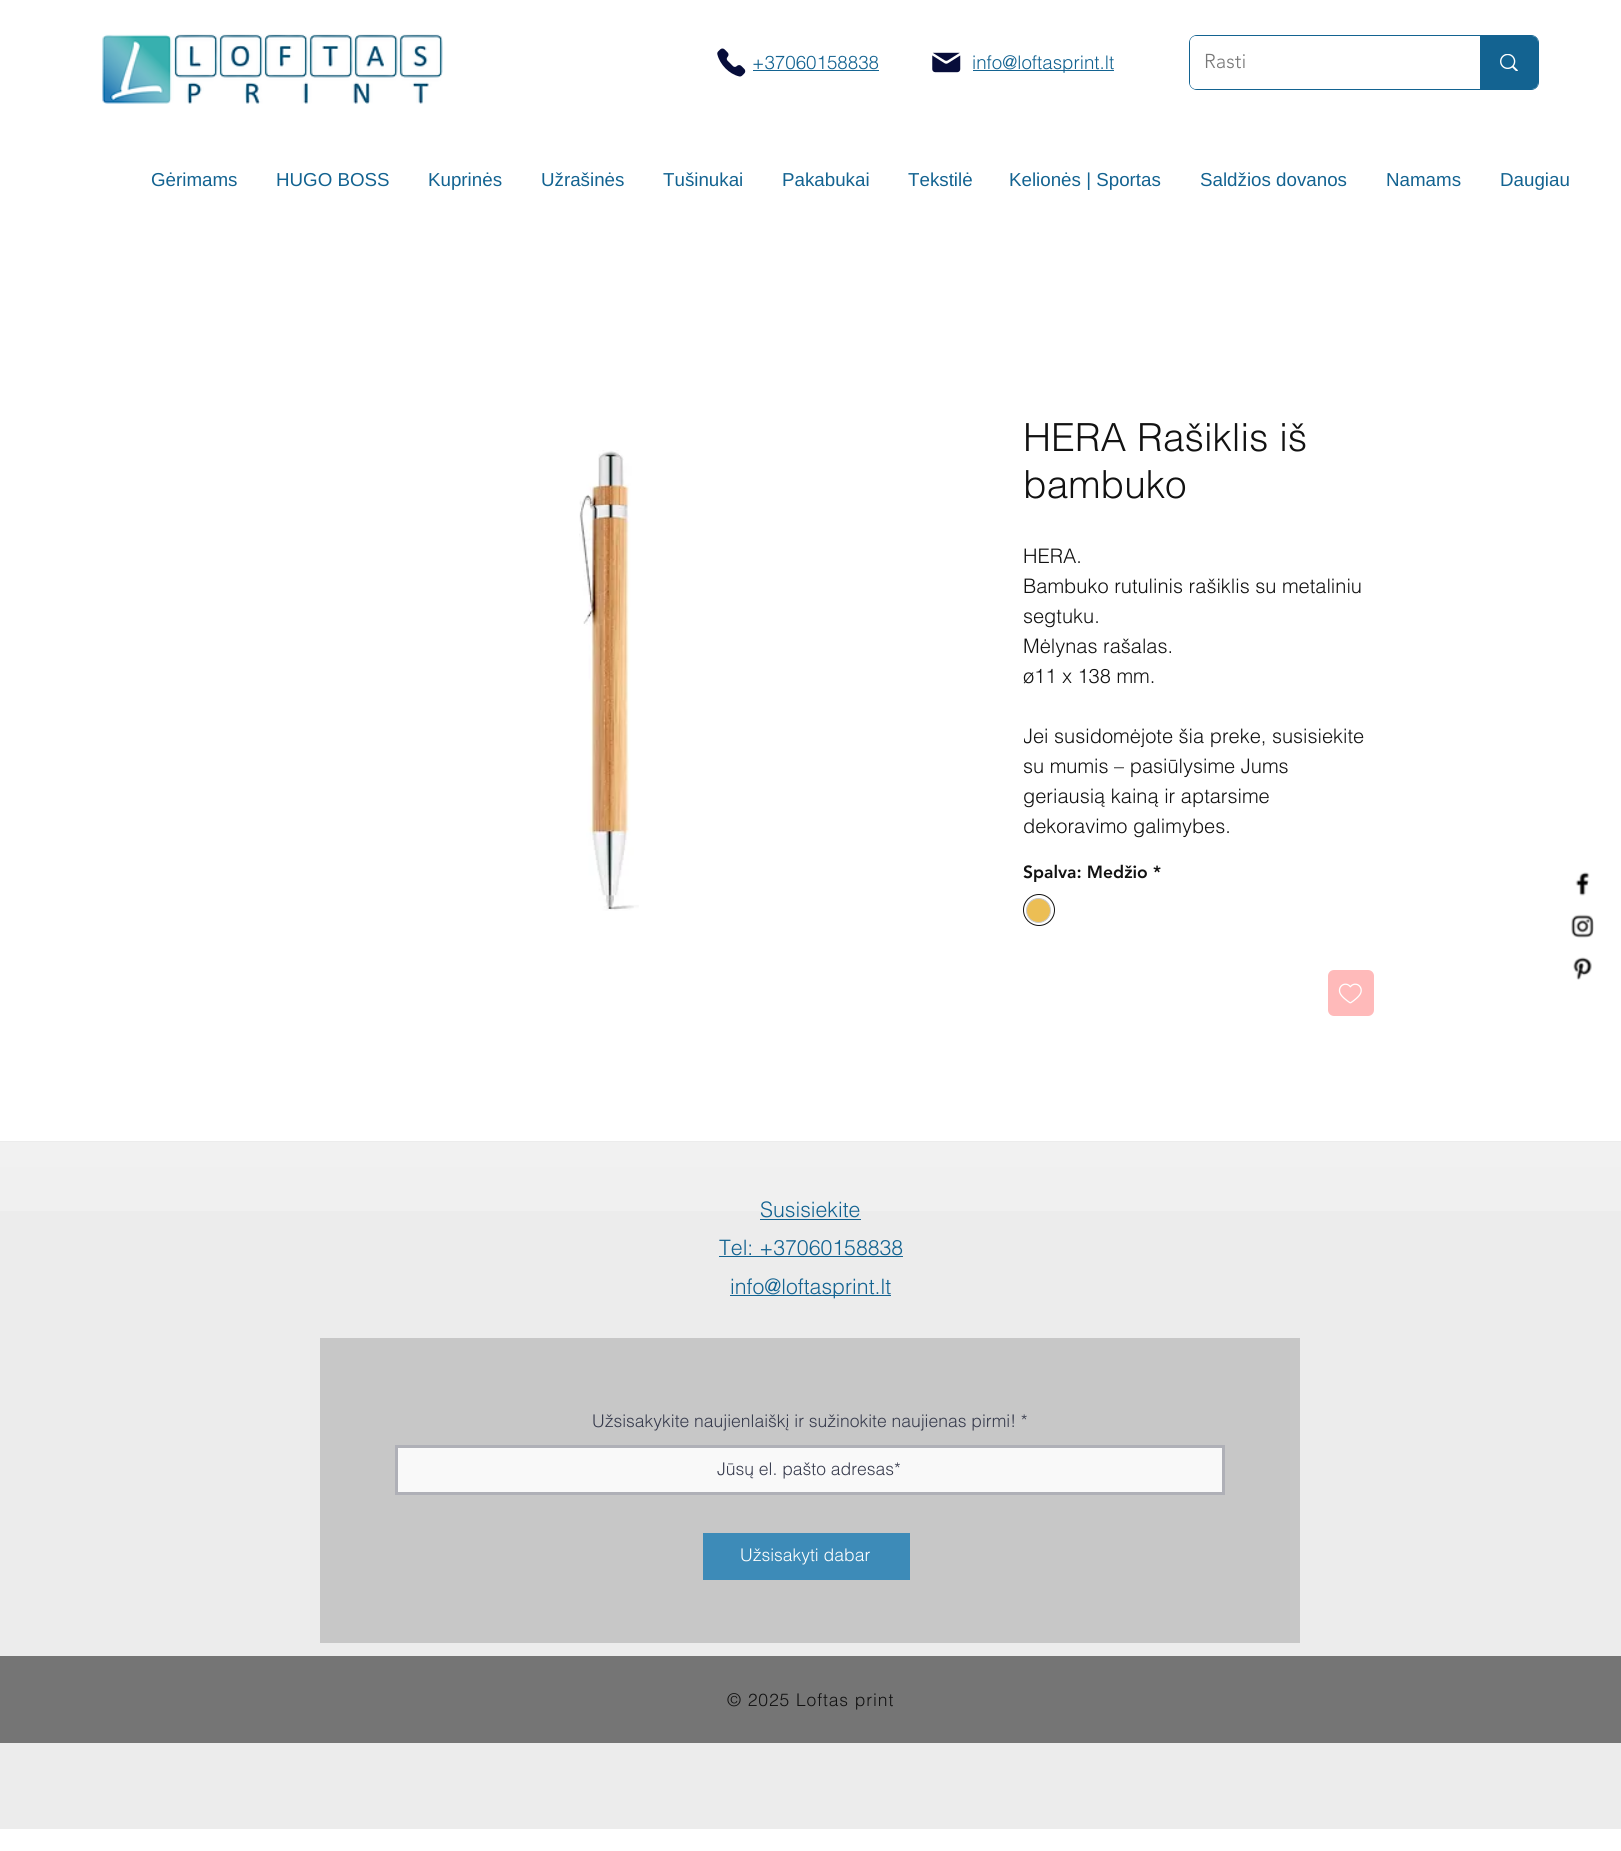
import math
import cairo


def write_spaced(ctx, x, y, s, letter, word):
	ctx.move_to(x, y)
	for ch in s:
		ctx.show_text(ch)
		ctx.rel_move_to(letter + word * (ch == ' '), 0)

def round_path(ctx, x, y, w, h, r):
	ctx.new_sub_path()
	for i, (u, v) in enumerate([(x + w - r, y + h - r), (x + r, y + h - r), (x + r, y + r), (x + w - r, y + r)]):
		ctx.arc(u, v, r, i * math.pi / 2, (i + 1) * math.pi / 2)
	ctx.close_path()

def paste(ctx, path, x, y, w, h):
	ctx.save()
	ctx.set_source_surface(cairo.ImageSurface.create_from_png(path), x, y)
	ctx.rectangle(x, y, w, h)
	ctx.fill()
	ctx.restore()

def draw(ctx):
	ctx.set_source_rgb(1, 1, 1)
	ctx.paint()
	paste(ctx, 'media/1.png', 102, 34, 341, 70)
	paste(ctx, 'media/2.png', 717, 48, 29, 29)
	ctx.select_font_face('helvetica Light')
	ctx.set_font_size(18.75)
	ctx.set_source_rgb(0.075, 0.388, 0.569)
	ctx.move_to(752, 69)
	ctx.show_text('+37060158838')
	ctx.rectangle(753, 70, 126, 1)
	ctx.fill()
	paste(ctx, 'media/3.png', 932, 52, 29, 21)
	ctx.rectangle(973, 70, 141, 1)
	ctx.fill()
	ctx.move_to(972, 69)
	ctx.show_text('info@loftasprint.lt')
	round_path(ctx, 1189.5, 35.5, 349, 54, 7.5)
	ctx.set_line_width(1)
	ctx.stroke()
	ctx.set_source_rgb(1, 1, 1)
	round_path(ctx, 1190, 36, 348, 53, 6)
	ctx.fill()
	ctx.select_font_face('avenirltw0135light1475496 Light')
	ctx.set_font_size(20)
	ctx.set_source_rgb(0.471, 0.471, 0.471)
	ctx.move_to(1204, 68)
	ctx.show_text('Rasti')
	ctx.set_source_rgb(0.075, 0.388, 0.569)
	ctx.new_path()
	ctx.move_to(1480, 36)
	ctx.line_to(1532, 36)
	ctx.curve_to(1535.5, 36, 1538, 38.5, 1538, 42)
	ctx.line_to(1538, 83)
	ctx.curve_to(1538, 86.5, 1535.5, 89, 1532, 89)
	ctx.line_to(1480, 89)
	ctx.close_path()
	ctx.fill()
	paste(ctx, 'media/4.png', 1500, 54, 18, 17)
	ctx.select_font_face('Liberation Sans')
	ctx.set_font_size(18.75)
	for x, y, s in [
		(151, 186, 'Gėrimams'),
		(276, 186, 'HUGO BOSS'),
		(428, 186, 'Kuprinės'),
		(541, 186, 'Užrašinės'),
		(663, 186, 'Tušinukai'),
		(782, 186, 'Pakabukai'),
		(908, 186, 'Tekstilė'),
		(1009, 186, 'Kelionės | Sportas'),
		(1200, 186, 'Saldžios dovanos'),
		(1386, 186, 'Namams'),
		(1500, 186, 'Daugiau'),
	]:
		ctx.move_to(x, y)
		ctx.show_text(s)
	paste(ctx, 'media/5.png', 579, 450, 60, 461)
	ctx.select_font_face('helvetica Light')
	ctx.set_font_size(38.75)
	ctx.set_source_rgb(0.071, 0.071, 0.071)
	ctx.move_to(1023, 451)
	ctx.show_text('HERA Rašiklis iš')
	ctx.move_to(1023, 498)
	ctx.show_text('bambuko')
	ctx.set_font_size(20)
	for x, y, s in [
		(1023, 563, 'HERA.'),
		(1023, 593, 'Bambuko rutulinis rašiklis su metaliniu'),
		(1023, 623, 'segtuku.'),
		(1023, 653, 'Mėlynas rašalas.'),
		(1023, 683, 'ø11 x 138 mm.'),
	]:
		ctx.move_to(x, y)
		ctx.show_text(s)
	ctx.save()
	ctx.rectangle(1024, 540, 350, 300)
	ctx.clip()
	ctx.move_to(1023, 743)
	ctx.show_text('Jei susidomėjote šia preke, susisiekite')
	ctx.restore()
	for x, y, s in [
		(1023, 773, 'su mumis – pasiūlysime Jums'),
		(1023, 803, 'geriausią kainą ir aptarsime'),
		(1023, 833, 'dekoravimo galimybes.'),
	]:
		ctx.move_to(x, y)
		ctx.show_text(s)
	ctx.select_font_face('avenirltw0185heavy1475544 Black')
	ctx.set_font_size(17.5)
	ctx.move_to(1023, 878)
	ctx.show_text('Spalva: Medžio *')
	ctx.new_path()
	ctx.arc(1039, 910, 15.5, 0, 2 * math.pi)
	ctx.stroke()
	ctx.set_source_rgb(0.922, 0.745, 0.329)
	ctx.arc(1038.5, 910.5, 12, 0, 2 * math.pi)
	ctx.fill_preserve()
	ctx.set_source_rgb(0.788, 0.788, 0.788)
	ctx.stroke()
	ctx.set_source_rgb(1, 0.729, 0.729)
	round_path(ctx, 1328, 970, 46, 46, 6)
	ctx.fill()
	paste(ctx, 'media/6.png', 1338, 983, 24, 21)
	paste(ctx, 'media/7.png', 1575, 872, 15, 24)
	paste(ctx, 'media/8.png', 1571, 914, 23, 24)
	paste(ctx, 'media/9.png', 1573, 957, 19, 23)
	ctx.set_source_rgb(0.922, 0.922, 0.922)
	ctx.rectangle(0, 1141, 1621, 688)
	ctx.fill()
	paste(ctx, 'media/10.png', 0, 1142, 1621, 69)
	ctx.select_font_face('helvetica Light')
	ctx.set_font_size(21.25)
	ctx.set_source_rgb(0.075, 0.388, 0.569)
	ctx.move_to(760, 1217)
	ctx.show_text('Susisiekite')
	ctx.rectangle(760, 1219, 101, 1)
	ctx.fill()
	ctx.move_to(719, 1255)
	ctx.show_text('Tel: +37060158838')
	ctx.rectangle(719, 1256, 184, 1)
	ctx.fill()
	ctx.rectangle(730, 1295, 161, 1)
	ctx.fill()
	ctx.move_to(730, 1294)
	ctx.show_text('info@loftasprint.lt')
	ctx.set_source_rgb(0.78, 0.78, 0.78)
	ctx.rectangle(320, 1338, 980, 305)
	ctx.fill()
	ctx.set_font_size(17.5)
	ctx.set_source_rgb(0.216, 0.231, 0.302)
	ctx.move_to(592, 1427)
	ctx.show_text('Užsisakykite naujienlaiškį ir sužinokite naujienas pirmi! *')
	ctx.set_source_rgb(0.973, 0.973, 0.973)
	ctx.rectangle(396.5, 1446.5, 827, 47)
	ctx.fill_preserve()
	ctx.set_source_rgb(0.686, 0.69, 0.718)
	ctx.set_line_width(3)
	ctx.stroke()
	ctx.set_source_rgb(0.216, 0.231, 0.302)
	ctx.move_to(717, 1475)
	ctx.show_text('Jūsų el. pašto adresas*')
	ctx.set_source_rgb(0.239, 0.545, 0.722)
	ctx.rectangle(703, 1533, 207, 47)
	ctx.fill()
	ctx.set_source_rgb(1, 1, 1)
	ctx.move_to(740, 1561)
	ctx.show_text('Užsisakyti dabar')
	ctx.set_source_rgb(0.459, 0.459, 0.459)
	ctx.rectangle(0, 1656, 1621, 87)
	ctx.fill()
	ctx.set_source_rgb(0.071, 0.071, 0.071)
	write_spaced(ctx, 727, 1706, '© 2025 Loftas print', 0.9, 0)


surface = cairo.ImageSurface(cairo.FORMAT_RGB24, 1621, 1851)
ctx = cairo.Context(surface)
options = cairo.FontOptions()
options.set_hint_metrics(cairo.HINT_METRICS_OFF)
options.set_hint_style(cairo.HINT_STYLE_NONE)
ctx.set_font_options(options)
ctx.set_miter_limit(4)
draw(ctx)
surface.write_to_png('image.png')
